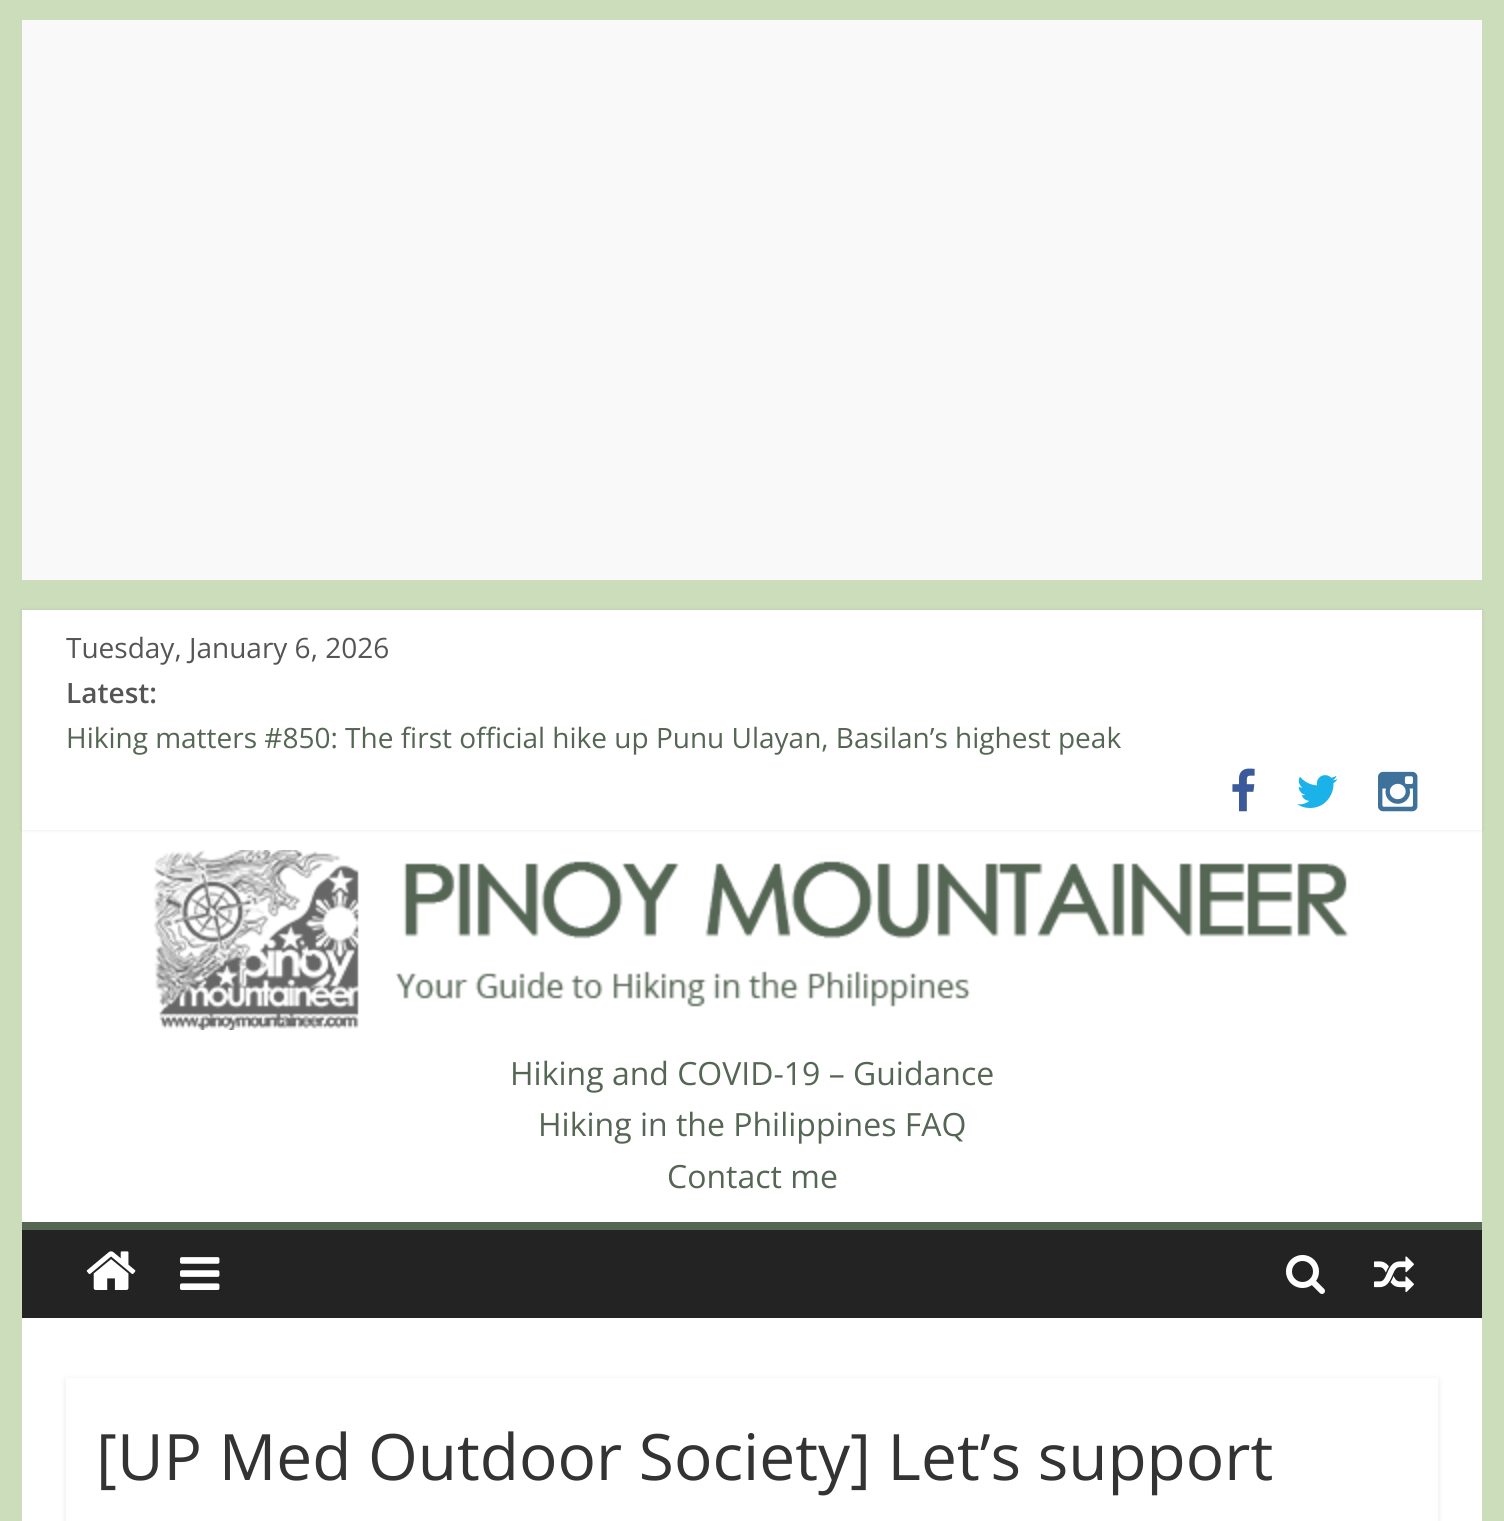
import math
import cairo


def round_path(ctx, x, y, w, h, r):
	ctx.new_sub_path()
	for i, (u, v) in enumerate([(x + w - r, y + h - r), (x + r, y + h - r), (x + r, y + r), (x + w - r, y + r)]):
		ctx.arc(u, v, r, i * math.pi / 2, (i + 1) * math.pi / 2)
	ctx.close_path()

def blur_box(ctx, x, y, w, h, r, blur, alpha):
	ctx.push_group_with_content(cairo.CONTENT_ALPHA)
	ctx.set_operator(cairo.OPERATOR_SOURCE)
	for i in range(15, -16, -2):
		e = blur * i / 6
		if min(w, h) + 2 * e > 0:
			ctx.set_source_rgba(0, 0, 0, alpha * math.erfc((i - 1) / 8.5) / 2)
			round_path(ctx, x - e, y - e, w + 2 * e, h + 2 * e, max(0, min(r + e + blur * .6, min(w, h) / 2 + e)))
			ctx.fill()
	ctx.mask(ctx.pop_group())

def paste(ctx, path, x, y, w, h):
	ctx.save()
	ctx.set_source_surface(cairo.ImageSurface.create_from_png(path), x, y)
	ctx.rectangle(x, y, w, h)
	ctx.fill()
	ctx.restore()

def draw(ctx):
	ctx.set_source_rgb(0.8, 0.867, 0.733)
	ctx.paint()
	ctx.set_source_rgb(0.973, 0.973, 0.973)
	ctx.rectangle(22, 20, 1460, 560)
	ctx.fill()
	ctx.set_source_rgb(1, 1, 1)
	ctx.rectangle(22, 610, 1460, 612)
	ctx.fill()
	ctx.save()
	ctx.set_fill_rule(cairo.FILL_RULE_EVEN_ODD)
	ctx.new_path()
	ctx.move_to(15, 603)
	ctx.line_to(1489, 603)
	ctx.line_to(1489, 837)
	ctx.line_to(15, 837)
	ctx.close_path()
	ctx.move_to(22, 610)
	ctx.line_to(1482, 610)
	ctx.line_to(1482, 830)
	ctx.line_to(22, 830)
	ctx.close_path()
	ctx.clip()
	ctx.set_source_rgb(0, 0, 0)
	blur_box(ctx, 22, 610, 1460, 220, 0, 2, 0.1)
	ctx.restore()
	ctx.select_font_face('Open Sans')
	ctx.set_font_size(28)
	ctx.set_source_rgb(0.333, 0.333, 0.333)
	ctx.move_to(66, 658)
	ctx.show_text('Tuesday, January 6, 2026')
	ctx.select_font_face('Open Sans SemiBold')
	ctx.move_to(66, 703)
	ctx.show_text('Latest:')
	ctx.select_font_face('Open Sans')
	ctx.set_source_rgb(0.333, 0.4, 0.333)
	ctx.move_to(66, 748)
	ctx.show_text('Hiking matters #850: The first official hike up Punu Ulayan, Basilan’s highest peak')
	paste(ctx, 'media/1.png', 1232, 768, 23, 44)
	paste(ctx, 'media/2.png', 1297, 775, 41, 33)
	paste(ctx, 'media/3.png', 1378, 771, 40, 41)
	paste(ctx, 'media/4.png', 154, 850, 1195, 180)
	ctx.set_font_size(32)
	for x, y, s in [
		(510, 1085, 'Hiking and COVID-19 – Guidance'),
		(538, 1136, 'Hiking in the Philippines FAQ'),
		(667, 1188, 'Contact me'),
	]:
		ctx.move_to(x, y)
		ctx.show_text(s)
	ctx.set_source_rgb(0.137, 0.137, 0.137)
	ctx.rectangle(22, 1230, 1460, 88)
	ctx.fill()
	ctx.set_source_rgb(0.333, 0.4, 0.333)
	ctx.rectangle(22, 1222, 1460, 8)
	ctx.fill()
	paste(ctx, 'media/5.png', 86, 1251, 50, 39)
	paste(ctx, 'media/6.png', 180, 1257, 40, 33)
	paste(ctx, 'media/7.png', 1286, 1255, 39, 39)
	paste(ctx, 'media/8.png', 1374, 1256, 40, 37)
	ctx.set_source_rgb(1, 1, 1)
	ctx.rectangle(22, 1318, 1460, 203)
	ctx.fill()
	ctx.save()
	ctx.set_fill_rule(cairo.FILL_RULE_EVEN_ODD)
	ctx.new_path()
	ctx.move_to(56, 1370)
	ctx.line_to(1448, 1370)
	ctx.line_to(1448, 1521)
	ctx.line_to(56, 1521)
	ctx.close_path()
	ctx.move_to(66, 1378)
	ctx.line_to(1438, 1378)
	ctx.line_to(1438, 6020)
	ctx.line_to(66, 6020)
	ctx.close_path()
	ctx.clip()
	ctx.set_source_rgb(0, 0, 0)
	blur_box(ctx, 66, 1380, 1372, 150, 0, 3, 0.1)
	ctx.restore()
	ctx.set_font_size(64)
	ctx.set_source_rgb(0.2, 0.2, 0.2)
	ctx.move_to(96, 1480)
	ctx.show_text('[UP Med Outdoor Society] Let’s support')


surface = cairo.ImageSurface(cairo.FORMAT_RGB24, 1504, 1521)
ctx = cairo.Context(surface)
options = cairo.FontOptions()
options.set_hint_metrics(cairo.HINT_METRICS_OFF)
options.set_hint_style(cairo.HINT_STYLE_NONE)
ctx.set_font_options(options)
ctx.set_miter_limit(4)
draw(ctx)
surface.write_to_png('image.png')
